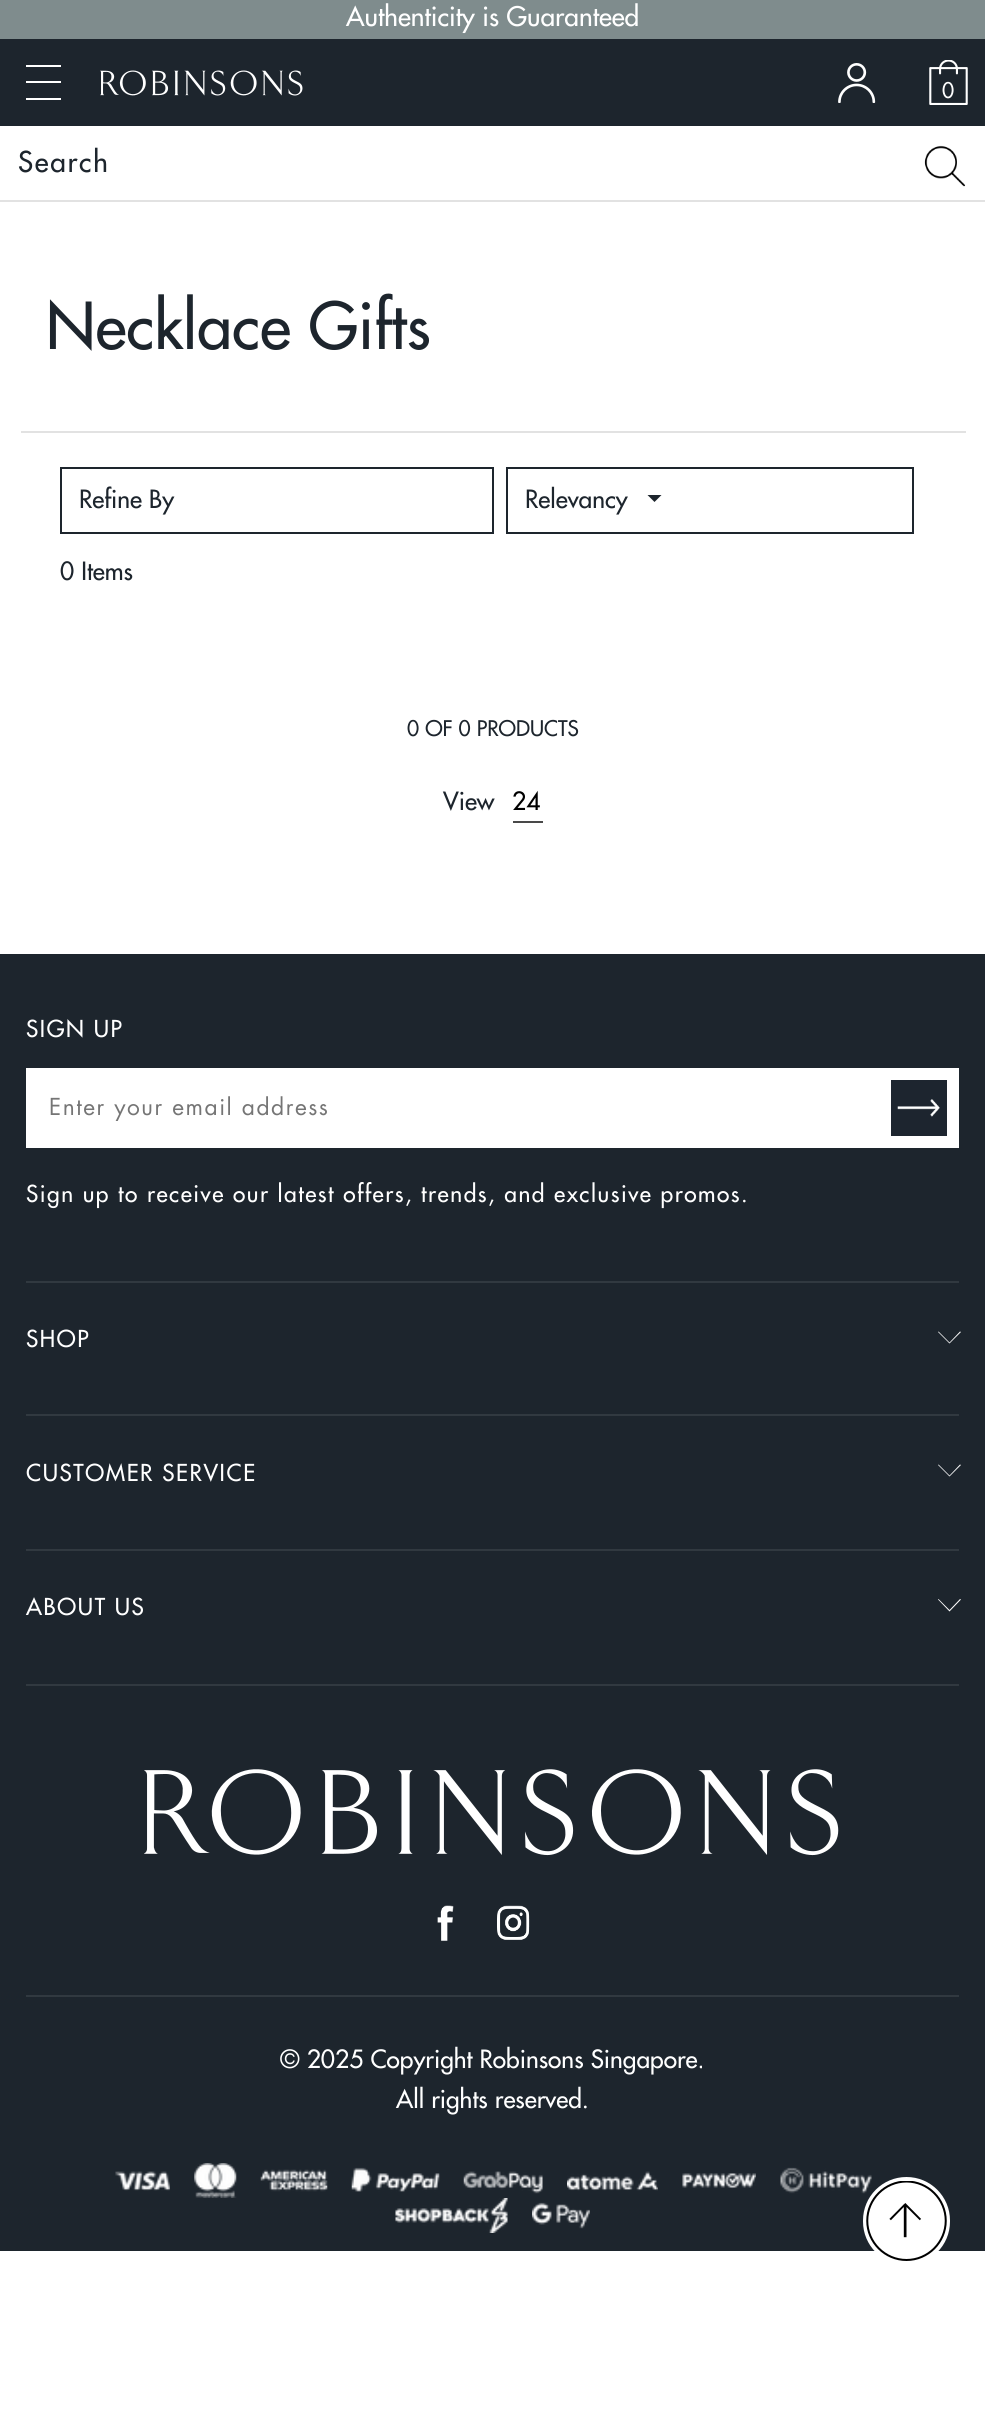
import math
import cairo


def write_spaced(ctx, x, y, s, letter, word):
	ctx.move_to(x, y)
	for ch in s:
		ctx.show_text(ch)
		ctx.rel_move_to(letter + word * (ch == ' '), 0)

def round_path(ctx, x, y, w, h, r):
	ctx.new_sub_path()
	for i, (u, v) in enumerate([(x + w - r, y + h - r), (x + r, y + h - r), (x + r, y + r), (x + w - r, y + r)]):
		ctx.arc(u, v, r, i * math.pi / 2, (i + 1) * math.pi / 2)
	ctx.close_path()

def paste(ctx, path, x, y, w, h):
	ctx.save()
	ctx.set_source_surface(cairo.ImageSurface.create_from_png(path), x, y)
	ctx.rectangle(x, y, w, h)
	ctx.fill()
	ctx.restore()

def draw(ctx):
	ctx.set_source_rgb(1, 1, 1)
	ctx.paint()
	ctx.set_source_rgb(0.498, 0.549, 0.553)
	ctx.rectangle(0, 0, 985, 39)
	ctx.fill()
	ctx.select_font_face('Futura Medium')
	ctx.set_font_size(26.25)
	ctx.set_source_rgb(1, 1, 1)
	ctx.move_to(346, 26)
	ctx.show_text('Authenticity is Guaranteed')
	ctx.set_source_rgb(0.114, 0.145, 0.176)
	ctx.rectangle(0, 39, 985, 87)
	ctx.fill()
	ctx.set_source_rgb(1, 1, 1)
	ctx.rectangle(26, 65, 35, 2)
	ctx.rectangle(26, 81, 35, 2)
	ctx.rectangle(26, 98, 35, 2)
	ctx.fill()
	paste(ctx, 'media/1.png', 100, 70, 203, 26)
	paste(ctx, 'media/2.png', 838, 63, 38, 40)
	paste(ctx, 'media/3.png', 929, 60, 39, 45)
	ctx.set_font_size(21)
	ctx.move_to(942, 98)
	ctx.show_text('0')
	ctx.set_source_rgb(0.886, 0.886, 0.886)
	ctx.rectangle(0, 200, 985, 2)
	ctx.fill()
	ctx.set_font_size(28)
	ctx.set_source_rgb(0.114, 0.145, 0.176)
	write_spaced(ctx, 18, 172, 'Search', 1.75, 0)
	paste(ctx, 'media/4.png', 924, 145, 42, 42)
	ctx.set_font_size(63)
	ctx.move_to(46, 349)
	ctx.show_text('Necklace Gifts')
	ctx.set_source_rgb(0.886, 0.886, 0.886)
	ctx.rectangle(21, 431, 945, 2)
	ctx.fill()
	ctx.rectangle(61, 468, 432, 65)
	ctx.set_source_rgb(0.114, 0.145, 0.176)
	ctx.stroke()
	ctx.set_font_size(24.5)
	ctx.move_to(79, 508)
	ctx.show_text('Refine By')
	ctx.rectangle(507, 468, 406, 65)
	ctx.stroke()
	ctx.move_to(525, 508)
	ctx.show_text('Relevancy')
	ctx.new_path()
	ctx.move_to(647.5, 495)
	ctx.line_to(661.5, 495)
	ctx.line_to(654.5, 502)
	ctx.close_path()
	ctx.fill()
	ctx.move_to(60, 580)
	ctx.show_text('0 Items')
	ctx.set_font_size(21)
	ctx.move_to(407, 736)
	ctx.show_text('0 OF 0 PRODUCTS')
	ctx.set_font_size(24.5)
	ctx.move_to(443, 810)
	ctx.show_text('View')
	ctx.set_source_rgb(0.286, 0.286, 0.286)
	ctx.rectangle(513, 821, 30, 2)
	ctx.fill()
	ctx.set_source_rgb(0, 0, 0)
	ctx.move_to(512, 810)
	ctx.show_text('24')
	ctx.set_source_rgb(0.114, 0.145, 0.176)
	ctx.rectangle(0, 954, 985, 1297)
	ctx.fill()
	ctx.set_source_rgb(0.192, 0.224, 0.251)
	ctx.rectangle(26, 1281, 933, 2)
	ctx.fill()
	ctx.set_font_size(22.75)
	ctx.set_source_rgb(1, 1, 1)
	write_spaced(ctx, 26, 1037, 'SIGN UP', 1.6, 0)
	ctx.rectangle(26, 1068, 933, 80)
	ctx.fill()
	ctx.select_font_face('Futura')
	ctx.set_source_rgb(0.459, 0.459, 0.459)
	write_spaced(ctx, 49, 1115, 'Enter your email address', 1.52, 0)
	ctx.set_source_rgb(0.114, 0.145, 0.184)
	ctx.rectangle(891, 1080, 56, 56)
	ctx.fill()
	paste(ctx, 'media/5.png', 897, 1099, 43, 18)
	ctx.select_font_face('Futura Medium')
	ctx.set_source_rgb(1, 1, 1)
	write_spaced(ctx, 26, 1202, 'Sign up to receive our latest offers, trends, and exclusive promos.', 1.52, 0)
	ctx.set_source_rgb(0.192, 0.224, 0.251)
	ctx.rectangle(26, 1414, 933, 2)
	ctx.fill()
	ctx.set_source_rgb(1, 1, 1)
	write_spaced(ctx, 26, 1347, 'SHOP', 1.6, 0)
	ctx.new_path()
	ctx.move_to(949.5, 1343.5)
	ctx.line_to(938, 1332)
	ctx.line_to(938.5, 1331.5)
	ctx.line_to(949.5, 1342.5)
	ctx.line_to(960, 1331.5)
	ctx.line_to(961, 1332)
	ctx.close_path()
	ctx.fill()
	ctx.set_source_rgb(0.192, 0.224, 0.251)
	ctx.rectangle(26, 1549, 933, 2)
	ctx.fill()
	ctx.set_source_rgb(1, 1, 1)
	write_spaced(ctx, 26, 1481, 'CUSTOMER SERVICE', 1.6, 0)
	ctx.new_path()
	ctx.move_to(949.5, 1476.5)
	ctx.line_to(938, 1465)
	ctx.line_to(938.5, 1464.5)
	ctx.line_to(949.5, 1475.5)
	ctx.line_to(960, 1464.5)
	ctx.line_to(961, 1465)
	ctx.close_path()
	ctx.fill()
	ctx.set_source_rgb(0.192, 0.224, 0.251)
	ctx.rectangle(26, 1684, 933, 2)
	ctx.fill()
	ctx.set_source_rgb(1, 1, 1)
	write_spaced(ctx, 26, 1615, 'ABOUT US', 1.6, 0)
	ctx.new_path()
	ctx.move_to(949.5, 1611.5)
	ctx.line_to(938, 1599.5)
	ctx.line_to(938.5, 1599)
	ctx.line_to(949.5, 1610)
	ctx.line_to(960, 1599)
	ctx.line_to(961, 1599.5)
	ctx.close_path()
	ctx.fill()
	paste(ctx, 'media/6.png', 144, 1769, 695, 87)
	paste(ctx, 'media/7.png', 437, 1905, 17, 36)
	paste(ctx, 'media/8.png', 497, 1905, 33, 35)
	ctx.set_source_rgb(0.192, 0.224, 0.251)
	ctx.rectangle(26, 1995, 933, 2)
	ctx.fill()
	ctx.set_font_size(24.5)
	ctx.set_source_rgb(1, 1, 1)
	ctx.move_to(280, 2068)
	ctx.show_text('© 2025 Copyright Robinsons Singapore.')
	ctx.move_to(396, 2108)
	ctx.show_text('All rights reserved.')
	paste(ctx, 'media/9.png', 115, 2171, 55, 20)
	paste(ctx, 'media/10.png', 194, 2163, 43, 35)
	paste(ctx, 'media/11.png', 260, 2169, 68, 23)
	paste(ctx, 'media/12.png', 351, 2167, 89, 25)
	paste(ctx, 'media/13.png', 463, 2171, 80, 23)
	paste(ctx, 'media/14.png', 567, 2171, 91, 20)
	paste(ctx, 'media/15.png', 682, 2173, 74, 16)
	paste(ctx, 'media/16.png', 780, 2167, 92, 27)
	paste(ctx, 'media/17.png', 395, 2198, 113, 35)
	paste(ctx, 'media/18.png', 532, 2202, 58, 27)
	round_path(ctx, 863, 2177, 87, 88, 43.5)
	ctx.fill()
	paste(ctx, 'media/19.png', 866, 2181, 81, 80)


surface = cairo.ImageSurface(cairo.FORMAT_RGB24, 985, 2422)
ctx = cairo.Context(surface)
options = cairo.FontOptions()
options.set_hint_metrics(cairo.HINT_METRICS_OFF)
options.set_hint_style(cairo.HINT_STYLE_NONE)
ctx.set_font_options(options)
ctx.set_miter_limit(4)
draw(ctx)
surface.write_to_png('image.png')
